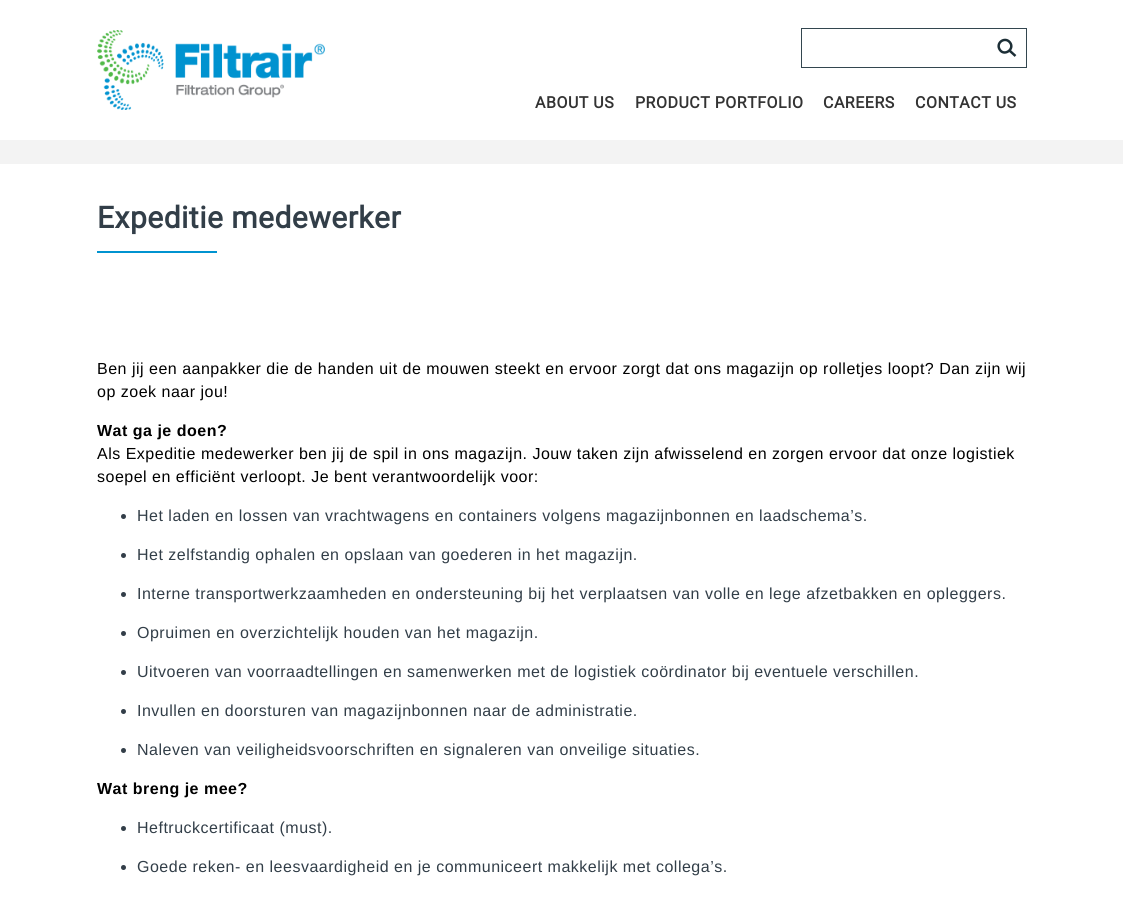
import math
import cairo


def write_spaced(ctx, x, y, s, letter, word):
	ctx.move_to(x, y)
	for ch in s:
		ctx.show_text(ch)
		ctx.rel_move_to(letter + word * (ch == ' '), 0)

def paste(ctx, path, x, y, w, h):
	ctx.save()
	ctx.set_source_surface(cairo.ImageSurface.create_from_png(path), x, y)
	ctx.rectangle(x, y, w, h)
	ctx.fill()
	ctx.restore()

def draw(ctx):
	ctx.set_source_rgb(1, 1, 1)
	ctx.paint()
	paste(ctx, 'media/1.png', 97, 30, 228, 80)
	ctx.rectangle(801.5, 28.5, 225, 39)
	ctx.set_source_rgb(0.2, 0.275, 0.31)
	ctx.set_line_width(1)
	ctx.stroke()
	ctx.new_path()
	ctx.move_to(1010, 42.5)
	ctx.curve_to(1015, 49, 1004.5, 56.5, 1000, 50)
	ctx.curve_to(995, 43, 1005, 36, 1010, 42.5)
	ctx.close_path()
	ctx.move_to(1010, 51)
	ctx.line_to(1015.5, 56)
	ctx.set_source_rgb(0.11, 0.18, 0.212)
	ctx.set_line_width(2.5)
	ctx.stroke()
	ctx.select_font_face('Roboto', cairo.FONT_SLANT_NORMAL, cairo.FONT_WEIGHT_BOLD)
	ctx.set_font_size(16)
	ctx.set_source_rgb(0.2, 0.2, 0.2)
	for x, y, s in [
		(535, 108, 'ABOUT US'),
		(635, 108, 'PRODUCT PORTFOLIO'),
		(823, 108, 'CAREERS'),
		(915, 108, 'CONTACT US'),
	]:
		write_spaced(ctx, x, y, s, 0.5, 0)
	ctx.set_source_rgb(0.953, 0.953, 0.953)
	ctx.rectangle(0, 140, 1123, 24)
	ctx.fill()
	ctx.set_font_size(30)
	ctx.set_source_rgb(0.196, 0.243, 0.282)
	write_spaced(ctx, 97, 228, 'Expeditie medewerker', 0.5, 0)
	ctx.set_source_rgb(0, 0.576, 0.816)
	ctx.rectangle(97, 251, 120, 2)
	ctx.fill()
	ctx.select_font_face('Liberation Sans')
	ctx.set_font_size(16)
	ctx.set_source_rgb(0, 0, 0)
	write_spaced(ctx, 97, 374, 'Ben jij een aanpakker die de handen uit de mouwen steekt en ervoor zorgt dat ons magazijn op rolletjes loopt? Dan zijn wij', 0.5, 0)
	write_spaced(ctx, 97, 397, 'op zoek naar jou!', 0.5, 0)
	ctx.select_font_face('Liberation Sans', cairo.FONT_SLANT_NORMAL, cairo.FONT_WEIGHT_BOLD)
	write_spaced(ctx, 97, 436, 'Wat ga je doen?', 0.5, 0)
	ctx.select_font_face('Liberation Sans')
	write_spaced(ctx, 97, 459, 'Als Expeditie medewerker ben jij de spil in ons magazijn. Jouw taken zijn afwisselend en zorgen ervoor dat onze logistiek', 0.5, 0)
	write_spaced(ctx, 97, 482, 'soepel en efficiënt verloopt. Je bent verantwoordelijk voor:', 0.5, 0)
	ctx.set_source_rgb(0.196, 0.243, 0.282)
	ctx.new_path()
	ctx.arc(123.5, 516.5, 2.5, 0, 2 * math.pi)
	ctx.fill()
	write_spaced(ctx, 137, 521, 'Het laden en lossen van vrachtwagens en containers volgens magazijnbonnen en laadschema’s.', 0.5, 0)
	ctx.new_path()
	ctx.arc(123.5, 555.5, 2.5, 0, 2 * math.pi)
	ctx.fill()
	write_spaced(ctx, 137, 560, 'Het zelfstandig ophalen en opslaan van goederen in het magazijn.', 0.5, 0)
	ctx.new_path()
	ctx.arc(123.5, 594.5, 2.5, 0, 2 * math.pi)
	ctx.fill()
	write_spaced(ctx, 137, 599, 'Interne transportwerkzaamheden en ondersteuning bij het verplaatsen van volle en lege afzetbakken en opleggers.', 0.5, 0)
	ctx.new_path()
	ctx.arc(123.5, 633.5, 2.5, 0, 2 * math.pi)
	ctx.fill()
	write_spaced(ctx, 137, 638, 'Opruimen en overzichtelijk houden van het magazijn.', 0.5, 0)
	ctx.new_path()
	ctx.arc(123.5, 672.5, 2.5, 0, 2 * math.pi)
	ctx.fill()
	write_spaced(ctx, 137, 677, 'Uitvoeren van voorraadtellingen en samenwerken met de logistiek coördinator bij eventuele verschillen.', 0.5, 0)
	ctx.new_path()
	ctx.arc(123.5, 711.5, 2.5, 0, 2 * math.pi)
	ctx.fill()
	write_spaced(ctx, 137, 716, 'Invullen en doorsturen van magazijnbonnen naar de administratie.', 0.5, 0)
	ctx.new_path()
	ctx.arc(123.5, 750.5, 2.5, 0, 2 * math.pi)
	ctx.fill()
	write_spaced(ctx, 137, 755, 'Naleven van veiligheidsvoorschriften en signaleren van onveilige situaties.', 0.5, 0)
	ctx.select_font_face('Liberation Sans', cairo.FONT_SLANT_NORMAL, cairo.FONT_WEIGHT_BOLD)
	ctx.set_source_rgb(0, 0, 0)
	write_spaced(ctx, 97, 794, 'Wat breng je mee?', 0.5, 0)
	ctx.set_source_rgb(0.196, 0.243, 0.282)
	ctx.new_path()
	ctx.arc(123.5, 828.5, 2.5, 0, 2 * math.pi)
	ctx.fill()
	ctx.select_font_face('Liberation Sans')
	write_spaced(ctx, 137, 833, 'Heftruckcertificaat (must).', 0.5, 0)
	ctx.new_path()
	ctx.arc(123.5, 867.5, 2.5, 0, 2 * math.pi)
	ctx.fill()
	write_spaced(ctx, 137, 872, 'Goede reken- en leesvaardigheid en je communiceert makkelijk met collega’s.', 0.5, 0)


surface = cairo.ImageSurface(cairo.FORMAT_RGB24, 1123, 904)
ctx = cairo.Context(surface)
options = cairo.FontOptions()
options.set_hint_metrics(cairo.HINT_METRICS_OFF)
options.set_hint_style(cairo.HINT_STYLE_NONE)
ctx.set_font_options(options)
ctx.set_miter_limit(4)
draw(ctx)
surface.write_to_png('image.png')
